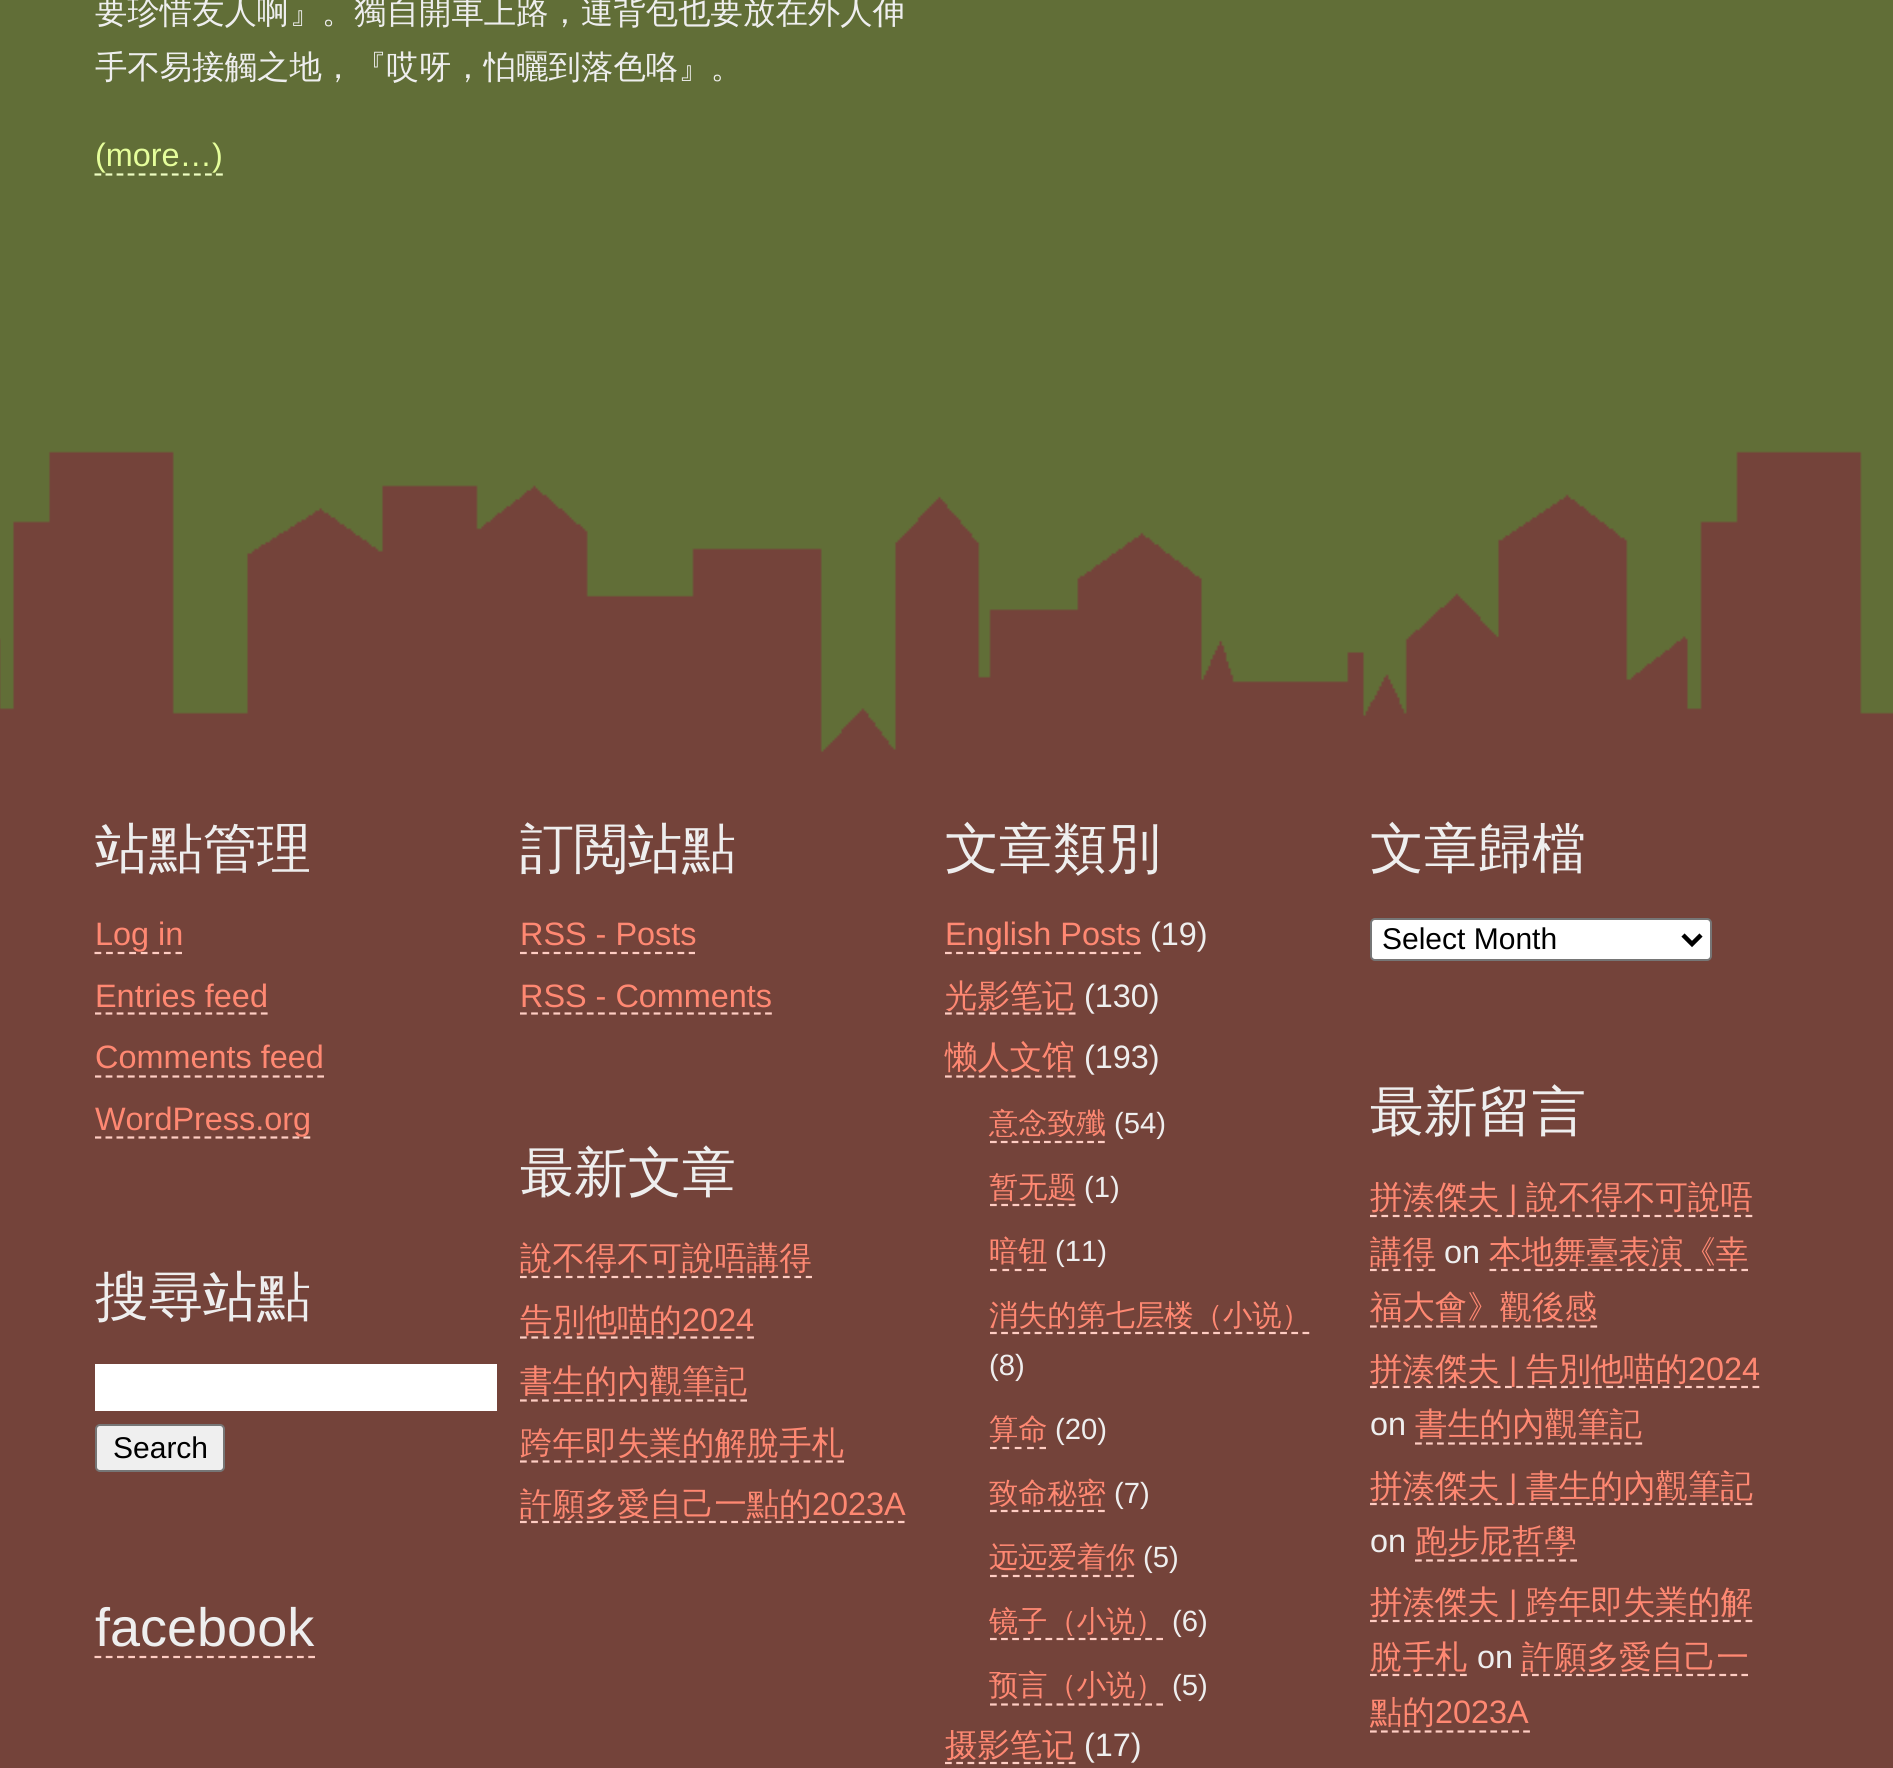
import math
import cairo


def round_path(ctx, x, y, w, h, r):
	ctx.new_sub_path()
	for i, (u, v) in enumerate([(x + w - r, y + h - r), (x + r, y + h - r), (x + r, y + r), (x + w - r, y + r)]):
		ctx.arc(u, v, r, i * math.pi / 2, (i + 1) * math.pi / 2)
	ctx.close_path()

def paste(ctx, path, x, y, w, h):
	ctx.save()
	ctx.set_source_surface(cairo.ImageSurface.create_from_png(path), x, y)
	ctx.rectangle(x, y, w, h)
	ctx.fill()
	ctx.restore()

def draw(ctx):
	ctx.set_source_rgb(0.38, 0.431, 0.216)
	ctx.paint()
	paste(ctx, 'media/1.png', 0, 451, 1893, 325)
	ctx.select_font_face('WenQuanYi Zen Hei Medium')
	ctx.set_font_size(32.4)
	ctx.set_source_rgb(0.933, 0.933, 0.933)
	ctx.move_to(95, 23)
	ctx.show_text('要珍惜友人啊』。獨自開車上路，連背包也要放在外人伸')
	ctx.move_to(95, 78)
	ctx.show_text('手不易接觸之地，『哎呀，怕曬到落色咯』。')
	ctx.select_font_face('Liberation Sans')
	ctx.set_source_rgb(0.898, 0.996, 0.608)
	ctx.move_to(95, 166)
	ctx.show_text('(more…)')
	ctx.new_path()
	ctx.move_to(94.5, 174.5)
	ctx.line_to(223, 174.5)
	ctx.set_source_rgb(0.933, 0.992, 0.761)
	ctx.set_line_width(2.2)
	ctx.set_dash([6.75, 4.3])
	ctx.stroke()
	ctx.set_source_rgb(0.455, 0.263, 0.227)
	ctx.rectangle(0, 776, 1893, 992)
	ctx.fill()
	ctx.select_font_face('WenQuanYi Zen Hei Medium')
	ctx.set_font_size(54)
	ctx.set_source_rgb(0.933, 0.933, 0.933)
	ctx.move_to(95, 867)
	ctx.show_text('站點管理')
	ctx.new_path()
	ctx.move_to(94.5, 953)
	ctx.line_to(182, 953)
	ctx.set_source_rgb(1, 0.804, 0.765)
	ctx.set_dash([6.75, 4.82])
	ctx.stroke()
	ctx.select_font_face('Liberation Sans')
	ctx.set_font_size(32.4)
	ctx.set_source_rgb(1, 0.533, 0.447)
	ctx.move_to(95, 945)
	ctx.show_text('Log in')
	ctx.move_to(95, 1007)
	ctx.show_text('Entries feed')
	ctx.save()
	ctx.rectangle(95, 776, 425, 376)
	ctx.clip()
	ctx.new_path()
	ctx.move_to(94.5, 1013.5)
	ctx.line_to(268, 1013.5)
	ctx.set_source_rgb(1, 0.804, 0.765)
	ctx.set_dash([6.75, 4.34])
	ctx.stroke()
	ctx.restore()
	ctx.move_to(95, 1068)
	ctx.show_text('Comments feed')
	ctx.save()
	ctx.rectangle(95, 776, 425, 376)
	ctx.clip()
	ctx.new_path()
	ctx.move_to(94.5, 1076.5)
	ctx.line_to(324, 1076.5)
	ctx.set_source_rgb(1, 0.804, 0.765)
	ctx.set_dash([6.75, 4.39])
	ctx.stroke()
	ctx.new_path()
	ctx.move_to(94.5, 1137.5)
	ctx.line_to(310.5, 1137.5)
	ctx.set_dash([6.75, 4.25])
	ctx.stroke()
	ctx.restore()
	ctx.move_to(95, 1130)
	ctx.show_text('WordPress.org')
	ctx.select_font_face('WenQuanYi Zen Hei Medium')
	ctx.set_font_size(54)
	ctx.set_source_rgb(0.933, 0.933, 0.933)
	ctx.move_to(520, 867)
	ctx.show_text('訂閲站點')
	ctx.select_font_face('Liberation Sans')
	ctx.set_font_size(32.4)
	ctx.set_source_rgb(1, 0.533, 0.447)
	ctx.move_to(520, 945)
	ctx.show_text('RSS - Posts')
	ctx.new_path()
	ctx.move_to(520, 953)
	ctx.line_to(695, 953)
	ctx.set_source_rgb(1, 0.804, 0.765)
	ctx.set_dash([6.75, 4.5])
	ctx.stroke()
	ctx.set_source_rgb(1, 0.533, 0.447)
	ctx.move_to(520, 1007)
	ctx.show_text('RSS - Comments')
	ctx.new_path()
	ctx.move_to(520, 1013.5)
	ctx.line_to(772, 1013.5)
	ctx.set_source_rgb(1, 0.804, 0.765)
	ctx.set_dash([6.75, 4.39])
	ctx.stroke()
	ctx.select_font_face('WenQuanYi Zen Hei Medium')
	ctx.set_font_size(54)
	ctx.set_source_rgb(0.933, 0.933, 0.933)
	ctx.move_to(945, 867)
	ctx.show_text('文章類別')
	ctx.new_path()
	ctx.move_to(945, 953)
	ctx.line_to(1141, 953)
	ctx.set_source_rgb(1, 0.804, 0.765)
	ctx.set_dash([6.75, 4.37])
	ctx.stroke()
	ctx.select_font_face('Liberation Sans')
	ctx.set_font_size(32.4)
	ctx.set_source_rgb(1, 0.533, 0.447)
	ctx.move_to(945, 945)
	ctx.show_text('English Posts')
	ctx.set_source_rgb(0.933, 0.933, 0.933)
	ctx.move_to(1150, 945)
	ctx.show_text('(19)')
	ctx.select_font_face('WenQuanYi Zen Hei Medium')
	ctx.set_source_rgb(1, 0.533, 0.447)
	ctx.move_to(945, 1007)
	ctx.show_text('光影笔记')
	ctx.new_path()
	ctx.move_to(945, 1013.5)
	ctx.line_to(1075.5, 1013.5)
	ctx.set_source_rgb(1, 0.804, 0.765)
	ctx.set_dash([6.75, 4.5])
	ctx.stroke()
	ctx.select_font_face('Liberation Sans')
	ctx.set_source_rgb(0.933, 0.933, 0.933)
	ctx.move_to(1084, 1007)
	ctx.show_text('(130)')
	ctx.select_font_face('WenQuanYi Zen Hei Medium')
	ctx.set_source_rgb(1, 0.533, 0.447)
	ctx.move_to(945, 1068)
	ctx.show_text('懒人文馆')
	ctx.new_path()
	ctx.move_to(945, 1076.5)
	ctx.line_to(1075.5, 1076.5)
	ctx.set_source_rgb(1, 0.804, 0.765)
	ctx.stroke()
	ctx.select_font_face('Liberation Sans')
	ctx.set_source_rgb(0.933, 0.933, 0.933)
	ctx.move_to(1084, 1068)
	ctx.show_text('(193)')
	ctx.select_font_face('WenQuanYi Zen Hei Medium')
	ctx.set_font_size(29.25)
	ctx.set_source_rgb(1, 0.533, 0.447)
	ctx.move_to(989, 1133)
	ctx.show_text('意念致殲')
	ctx.new_path()
	ctx.move_to(990, 1142)
	ctx.line_to(1105, 1142)
	ctx.set_source_rgb(1, 0.804, 0.765)
	ctx.set_dash([6.75, 4.05])
	ctx.stroke()
	ctx.select_font_face('Liberation Sans')
	ctx.set_source_rgb(0.933, 0.933, 0.933)
	ctx.move_to(1114, 1133)
	ctx.show_text('(54)')
	ctx.select_font_face('WenQuanYi Zen Hei Medium')
	ctx.set_source_rgb(1, 0.533, 0.447)
	ctx.move_to(989, 1197)
	ctx.show_text('暂无题')
	ctx.new_path()
	ctx.move_to(990, 1205)
	ctx.line_to(1075.5, 1205)
	ctx.set_source_rgb(1, 0.804, 0.765)
	ctx.set_dash([6.75, 4.5])
	ctx.stroke()
	ctx.select_font_face('Liberation Sans')
	ctx.set_source_rgb(0.933, 0.933, 0.933)
	ctx.move_to(1084, 1197)
	ctx.show_text('(1)')
	ctx.select_font_face('WenQuanYi Zen Hei Medium')
	ctx.set_source_rgb(1, 0.533, 0.447)
	ctx.move_to(989, 1261)
	ctx.show_text('暗钮')
	ctx.new_path()
	ctx.move_to(990, 1270)
	ctx.line_to(1046, 1270)
	ctx.set_source_rgb(1, 0.804, 0.765)
	ctx.set_dash([6.75, 5.62])
	ctx.stroke()
	ctx.select_font_face('Liberation Sans')
	ctx.set_source_rgb(0.933, 0.933, 0.933)
	ctx.move_to(1055, 1261)
	ctx.show_text('(11)')
	ctx.select_font_face('WenQuanYi Zen Hei Medium')
	ctx.set_source_rgb(1, 0.533, 0.447)
	ctx.move_to(989, 1325)
	ctx.show_text('消失的第七层楼（小说）')
	ctx.new_path()
	ctx.move_to(990, 1333)
	ctx.line_to(1309.5, 1333)
	ctx.set_source_rgb(1, 0.804, 0.765)
	ctx.set_dash([6.75, 4.41])
	ctx.stroke()
	ctx.select_font_face('Liberation Sans')
	ctx.set_source_rgb(0.933, 0.933, 0.933)
	ctx.move_to(989, 1375)
	ctx.show_text('(8)')
	ctx.select_font_face('WenQuanYi Zen Hei Medium')
	ctx.set_source_rgb(1, 0.533, 0.447)
	ctx.move_to(989, 1439)
	ctx.show_text('算命')
	ctx.new_path()
	ctx.move_to(990, 1448)
	ctx.line_to(1046, 1448)
	ctx.set_source_rgb(1, 0.804, 0.765)
	ctx.set_dash([6.75, 5.62])
	ctx.stroke()
	ctx.select_font_face('Liberation Sans')
	ctx.set_source_rgb(0.933, 0.933, 0.933)
	ctx.move_to(1055, 1439)
	ctx.show_text('(20)')
	ctx.select_font_face('WenQuanYi Zen Hei Medium')
	ctx.set_source_rgb(1, 0.533, 0.447)
	ctx.move_to(989, 1503)
	ctx.show_text('致命秘密')
	ctx.new_path()
	ctx.move_to(990, 1511)
	ctx.line_to(1105, 1511)
	ctx.set_source_rgb(1, 0.804, 0.765)
	ctx.set_dash([6.75, 4.05])
	ctx.stroke()
	ctx.select_font_face('Liberation Sans')
	ctx.set_source_rgb(0.933, 0.933, 0.933)
	ctx.move_to(1114, 1503)
	ctx.show_text('(7)')
	ctx.select_font_face('WenQuanYi Zen Hei Medium')
	ctx.set_source_rgb(1, 0.533, 0.447)
	ctx.move_to(989, 1567)
	ctx.show_text('远远爱着你')
	ctx.new_path()
	ctx.move_to(990, 1576)
	ctx.line_to(1134, 1576)
	ctx.set_source_rgb(1, 0.804, 0.765)
	ctx.set_dash([6.75, 4.68])
	ctx.stroke()
	ctx.select_font_face('Liberation Sans')
	ctx.set_source_rgb(0.933, 0.933, 0.933)
	ctx.move_to(1143, 1567)
	ctx.show_text('(5)')
	ctx.select_font_face('WenQuanYi Zen Hei Medium')
	ctx.set_source_rgb(1, 0.533, 0.447)
	ctx.move_to(989, 1631)
	ctx.show_text('镜子（小说）')
	ctx.new_path()
	ctx.move_to(990, 1639)
	ctx.line_to(1163, 1639)
	ctx.set_source_rgb(1, 0.804, 0.765)
	ctx.set_dash([6.75, 4.34])
	ctx.stroke()
	ctx.select_font_face('Liberation Sans')
	ctx.set_source_rgb(0.933, 0.933, 0.933)
	ctx.move_to(1172, 1631)
	ctx.show_text('(6)')
	ctx.select_font_face('WenQuanYi Zen Hei Medium')
	ctx.set_source_rgb(1, 0.533, 0.447)
	ctx.move_to(989, 1695)
	ctx.show_text('预言（小说）')
	ctx.new_path()
	ctx.move_to(990, 1704.5)
	ctx.line_to(1163, 1704.5)
	ctx.set_source_rgb(1, 0.804, 0.765)
	ctx.stroke()
	ctx.select_font_face('Liberation Sans')
	ctx.set_source_rgb(0.933, 0.933, 0.933)
	ctx.move_to(1172, 1695)
	ctx.show_text('(5)')
	ctx.select_font_face('WenQuanYi Zen Hei Medium')
	ctx.set_font_size(32.4)
	ctx.set_source_rgb(1, 0.533, 0.447)
	ctx.move_to(945, 1756)
	ctx.show_text('摄影笔记')
	ctx.new_path()
	ctx.move_to(945, 1763)
	ctx.line_to(1075.5, 1763)
	ctx.set_source_rgb(1, 0.804, 0.765)
	ctx.set_dash([6.75, 4.5])
	ctx.stroke()
	ctx.select_font_face('Liberation Sans')
	ctx.set_source_rgb(0.933, 0.933, 0.933)
	ctx.move_to(1084, 1756)
	ctx.show_text('(17)')
	ctx.select_font_face('WenQuanYi Zen Hei Medium')
	ctx.set_font_size(54)
	ctx.move_to(1370, 867)
	ctx.show_text('文章歸檔')
	ctx.set_source_rgb(1, 1, 1)
	round_path(ctx, 1371, 919, 340, 41, 4)
	ctx.fill_preserve()
	ctx.set_source_rgb(0.463, 0.463, 0.463)
	ctx.set_line_width(2)
	ctx.set_dash([])
	ctx.stroke()
	ctx.new_path()
	ctx.move_to(1683, 935)
	ctx.line_to(1692, 944)
	ctx.line_to(1701, 935)
	ctx.set_source_rgb(0, 0, 0)
	ctx.set_line_width(4.5)
	ctx.stroke()
	ctx.select_font_face('Liberation Sans')
	ctx.set_font_size(30)
	ctx.move_to(1382, 949)
	ctx.show_text('Select Month')
	ctx.select_font_face('WenQuanYi Zen Hei Medium')
	ctx.set_font_size(54)
	ctx.set_source_rgb(0.933, 0.933, 0.933)
	ctx.move_to(95, 1315)
	ctx.show_text('搜尋站點')
	ctx.set_source_rgb(1, 1, 1)
	ctx.rectangle(95, 1364, 402, 47)
	ctx.fill()
	ctx.set_source_rgb(0.937, 0.937, 0.937)
	round_path(ctx, 96, 1425, 128, 46, 4)
	ctx.fill_preserve()
	ctx.set_source_rgb(0.463, 0.463, 0.463)
	ctx.set_line_width(2)
	ctx.stroke()
	ctx.select_font_face('Liberation Sans')
	ctx.set_font_size(30)
	ctx.set_source_rgb(0, 0, 0)
	ctx.move_to(113, 1458)
	ctx.show_text('Search')
	ctx.select_font_face('WenQuanYi Zen Hei Medium')
	ctx.set_font_size(54)
	ctx.set_source_rgb(0.933, 0.933, 0.933)
	ctx.move_to(520, 1191)
	ctx.show_text('最新文章')
	ctx.set_font_size(32.4)
	ctx.set_source_rgb(1, 0.533, 0.447)
	ctx.move_to(520, 1269)
	ctx.show_text('說不得不可說唔講得')
	ctx.new_path()
	ctx.move_to(520, 1277)
	ctx.line_to(812, 1277)
	ctx.set_source_rgb(1, 0.804, 0.765)
	ctx.set_line_width(2.2)
	ctx.set_dash([6.75, 4.68])
	ctx.stroke()
	ctx.set_source_rgb(1, 0.533, 0.447)
	ctx.move_to(520, 1331)
	ctx.show_text('告別他喵的')
	ctx.new_path()
	ctx.move_to(520, 1337.5)
	ctx.line_to(754, 1337.5)
	ctx.set_source_rgb(1, 0.804, 0.765)
	ctx.set_dash([6.75, 4.61])
	ctx.stroke()
	ctx.select_font_face('Liberation Sans')
	ctx.set_source_rgb(1, 0.533, 0.447)
	ctx.move_to(682, 1331)
	ctx.show_text('2024')
	ctx.select_font_face('WenQuanYi Zen Hei Medium')
	ctx.move_to(520, 1392)
	ctx.show_text('書生的內觀筆記')
	ctx.new_path()
	ctx.move_to(520, 1400.5)
	ctx.line_to(747, 1400.5)
	ctx.set_source_rgb(1, 0.804, 0.765)
	ctx.set_dash([6.75, 4.27])
	ctx.stroke()
	ctx.set_source_rgb(1, 0.533, 0.447)
	ctx.move_to(520, 1454)
	ctx.show_text('跨年即失業的解脫手札')
	ctx.new_path()
	ctx.move_to(520, 1461.5)
	ctx.line_to(844, 1461.5)
	ctx.set_source_rgb(1, 0.804, 0.765)
	ctx.set_dash([6.75, 4.59])
	ctx.stroke()
	ctx.new_path()
	ctx.move_to(520, 1522)
	ctx.line_to(904.5, 1522)
	ctx.set_dash([6.75, 4.37])
	ctx.stroke()
	ctx.set_source_rgb(1, 0.533, 0.447)
	ctx.move_to(520, 1515)
	ctx.show_text('許願多愛自己一點的')
	ctx.select_font_face('Liberation Sans')
	ctx.move_to(812, 1515)
	ctx.show_text('2023A')
	ctx.select_font_face('WenQuanYi Zen Hei Medium')
	ctx.set_font_size(54)
	ctx.set_source_rgb(0.933, 0.933, 0.933)
	ctx.move_to(1370, 1130)
	ctx.show_text('最新留言')
	ctx.set_font_size(32.4)
	ctx.set_source_rgb(1, 0.533, 0.447)
	ctx.move_to(1370, 1208)
	ctx.show_text('拼湊傑夫')
	ctx.new_path()
	ctx.move_to(1370, 1216)
	ctx.line_to(1753, 1216)
	ctx.set_source_rgb(1, 0.804, 0.765)
	ctx.set_dash([6.75, 4.63])
	ctx.stroke()
	ctx.select_font_face('Liberation Sans')
	ctx.set_source_rgb(1, 0.533, 0.447)
	ctx.move_to(1509, 1208)
	ctx.show_text('|')
	ctx.select_font_face('WenQuanYi Zen Hei Medium')
	ctx.move_to(1526, 1208)
	ctx.show_text('說不得不可說唔')
	ctx.move_to(1370, 1263)
	ctx.show_text('講得')
	ctx.new_path()
	ctx.move_to(1370, 1270)
	ctx.line_to(1435.5, 1270)
	ctx.set_source_rgb(1, 0.804, 0.765)
	ctx.set_dash([6.75, 4.95])
	ctx.stroke()
	ctx.select_font_face('Liberation Sans')
	ctx.set_source_rgb(0.933, 0.933, 0.933)
	ctx.move_to(1444, 1263)
	ctx.show_text('on')
	ctx.select_font_face('WenQuanYi Zen Hei Medium')
	ctx.set_source_rgb(1, 0.533, 0.447)
	ctx.move_to(1489, 1263)
	ctx.show_text('本地舞臺表演《幸')
	ctx.new_path()
	ctx.move_to(1489.5, 1270)
	ctx.line_to(1748, 1270)
	ctx.set_source_rgb(1, 0.804, 0.765)
	ctx.set_dash([6.75, 4.7])
	ctx.stroke()
	ctx.set_source_rgb(1, 0.533, 0.447)
	ctx.move_to(1370, 1318)
	ctx.show_text('福大會》觀後感')
	ctx.new_path()
	ctx.move_to(1370, 1326.5)
	ctx.line_to(1597.5, 1326.5)
	ctx.set_source_rgb(1, 0.804, 0.765)
	ctx.set_dash([6.75, 4.27])
	ctx.stroke()
	ctx.set_source_rgb(1, 0.533, 0.447)
	ctx.move_to(1370, 1380)
	ctx.show_text('拼湊傑夫')
	ctx.new_path()
	ctx.move_to(1370, 1387)
	ctx.line_to(1759.5, 1387)
	ctx.set_source_rgb(1, 0.804, 0.765)
	ctx.set_dash([6.75, 4.5])
	ctx.stroke()
	ctx.select_font_face('Liberation Sans')
	ctx.set_source_rgb(1, 0.533, 0.447)
	ctx.move_to(1509, 1380)
	ctx.show_text('|')
	ctx.select_font_face('WenQuanYi Zen Hei Medium')
	ctx.move_to(1526, 1380)
	ctx.show_text('告別他喵的')
	ctx.select_font_face('Liberation Sans')
	ctx.move_to(1688, 1380)
	ctx.show_text('2024')
	ctx.set_source_rgb(0.933, 0.933, 0.933)
	ctx.move_to(1370, 1435)
	ctx.show_text('on')
	ctx.select_font_face('WenQuanYi Zen Hei Medium')
	ctx.set_source_rgb(1, 0.533, 0.447)
	ctx.move_to(1415, 1435)
	ctx.show_text('書生的內觀筆記')
	ctx.new_path()
	ctx.move_to(1415, 1443.5)
	ctx.line_to(1642.5, 1443.5)
	ctx.set_source_rgb(1, 0.804, 0.765)
	ctx.set_dash([6.75, 4.27])
	ctx.stroke()
	ctx.set_source_rgb(1, 0.533, 0.447)
	ctx.move_to(1370, 1497)
	ctx.show_text('拼湊傑夫')
	ctx.new_path()
	ctx.move_to(1370, 1504)
	ctx.line_to(1753, 1504)
	ctx.set_source_rgb(1, 0.804, 0.765)
	ctx.set_dash([6.75, 4.63])
	ctx.stroke()
	ctx.select_font_face('Liberation Sans')
	ctx.set_source_rgb(1, 0.533, 0.447)
	ctx.move_to(1509, 1497)
	ctx.show_text('|')
	ctx.select_font_face('WenQuanYi Zen Hei Medium')
	ctx.move_to(1526, 1497)
	ctx.show_text('書生的內觀筆記')
	ctx.select_font_face('Liberation Sans')
	ctx.set_source_rgb(0.933, 0.933, 0.933)
	ctx.move_to(1370, 1552)
	ctx.show_text('on')
	ctx.select_font_face('WenQuanYi Zen Hei Medium')
	ctx.set_source_rgb(1, 0.533, 0.447)
	ctx.move_to(1415, 1552)
	ctx.show_text('跑步屁哲學')
	ctx.new_path()
	ctx.move_to(1415, 1560.5)
	ctx.line_to(1577, 1560.5)
	ctx.set_source_rgb(1, 0.804, 0.765)
	ctx.set_dash([6.75, 4.34])
	ctx.stroke()
	ctx.set_source_rgb(1, 0.533, 0.447)
	ctx.move_to(1370, 1613)
	ctx.show_text('拼湊傑夫')
	ctx.new_path()
	ctx.move_to(1370, 1621)
	ctx.line_to(1753, 1621)
	ctx.set_source_rgb(1, 0.804, 0.765)
	ctx.set_dash([6.75, 4.63])
	ctx.stroke()
	ctx.select_font_face('Liberation Sans')
	ctx.set_source_rgb(1, 0.533, 0.447)
	ctx.move_to(1509, 1613)
	ctx.show_text('|')
	ctx.select_font_face('WenQuanYi Zen Hei Medium')
	ctx.move_to(1526, 1613)
	ctx.show_text('跨年即失業的解')
	ctx.move_to(1370, 1668)
	ctx.show_text('脫手札')
	ctx.new_path()
	ctx.move_to(1370, 1675)
	ctx.line_to(1467, 1675)
	ctx.set_source_rgb(1, 0.804, 0.765)
	ctx.set_dash([6.75, 4.5])
	ctx.stroke()
	ctx.select_font_face('Liberation Sans')
	ctx.set_source_rgb(0.933, 0.933, 0.933)
	ctx.move_to(1477, 1668)
	ctx.show_text('on')
	ctx.new_path()
	ctx.move_to(1521, 1675)
	ctx.line_to(1748, 1675)
	ctx.set_source_rgb(1, 0.804, 0.765)
	ctx.set_dash([6.75, 4.27])
	ctx.stroke()
	ctx.select_font_face('WenQuanYi Zen Hei Medium')
	ctx.set_source_rgb(1, 0.533, 0.447)
	ctx.move_to(1522, 1668)
	ctx.show_text('許願多愛自己一')
	ctx.move_to(1370, 1723)
	ctx.show_text('點的')
	ctx.new_path()
	ctx.move_to(1370, 1731.5)
	ctx.line_to(1530, 1731.5)
	ctx.set_source_rgb(1, 0.804, 0.765)
	ctx.set_dash([6.75, 4.19])
	ctx.stroke()
	ctx.select_font_face('Liberation Sans')
	ctx.set_source_rgb(1, 0.533, 0.447)
	ctx.move_to(1435, 1723)
	ctx.show_text('2023A')
	ctx.set_font_size(54)
	ctx.set_source_rgb(0.933, 0.933, 0.933)
	ctx.move_to(95, 1646)
	ctx.show_text('facebook')
	ctx.new_path()
	ctx.move_to(94.5, 1657)
	ctx.line_to(315, 1657)
	ctx.set_source_rgb(1, 0.804, 0.765)
	ctx.set_dash([6.75, 4.5])
	ctx.stroke()


surface = cairo.ImageSurface(cairo.FORMAT_RGB24, 1893, 1768)
ctx = cairo.Context(surface)
options = cairo.FontOptions()
options.set_hint_metrics(cairo.HINT_METRICS_OFF)
options.set_hint_style(cairo.HINT_STYLE_NONE)
ctx.set_font_options(options)
ctx.set_miter_limit(4)
draw(ctx)
surface.write_to_png('image.png')
